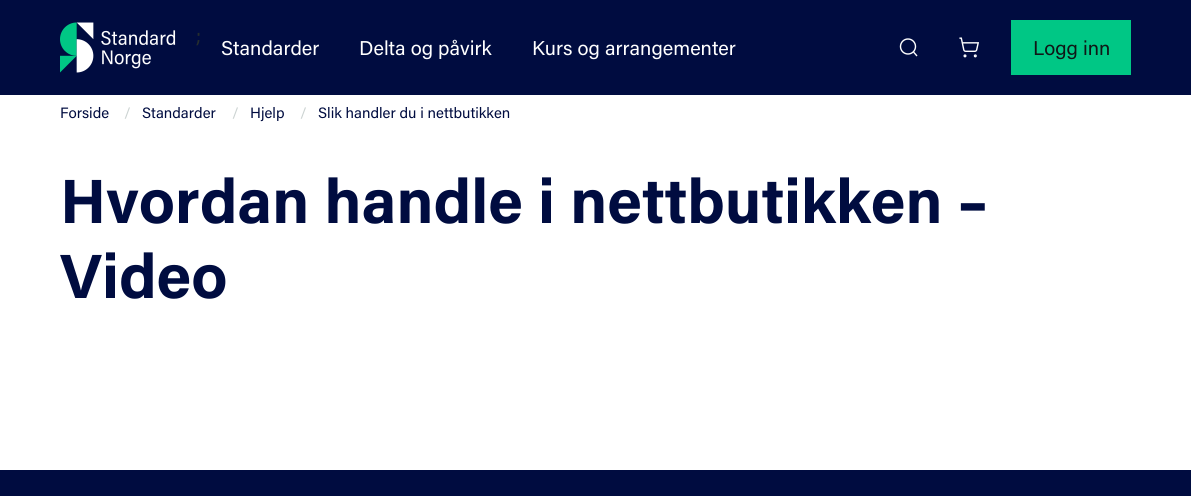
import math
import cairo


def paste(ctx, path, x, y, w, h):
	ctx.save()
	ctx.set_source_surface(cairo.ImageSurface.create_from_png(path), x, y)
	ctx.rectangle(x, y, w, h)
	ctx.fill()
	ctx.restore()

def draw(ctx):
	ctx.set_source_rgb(1, 1, 1)
	ctx.paint()
	ctx.set_source_rgb(0, 0.047, 0.251)
	ctx.rectangle(0, 0, 1191, 95)
	ctx.fill()
	paste(ctx, 'media/1.png', 60, 22, 116, 51)
	ctx.select_font_face('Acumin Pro')
	ctx.set_font_size(20)
	ctx.set_source_rgb(0.149, 0.18, 0.176)
	ctx.move_to(196, 43)
	ctx.show_text(';')
	ctx.set_source_rgb(1, 1, 1)
	for x, y, s in [
		(221, 55, 'Standarder'),
		(359, 55, 'Delta og påvirk'),
		(532, 55, 'Kurs og arrangementer'),
	]:
		ctx.move_to(x, y)
		ctx.show_text(s)
	ctx.new_path()
	ctx.arc(908, 46.5, 7.5, 0, 2 * math.pi)
	ctx.set_line_width(1.4)
	ctx.stroke()
	ctx.new_path()
	ctx.move_to(917, 56)
	ctx.line_to(913.5, 52)
	ctx.stroke()
	paste(ctx, 'media/2.png', 959, 37, 20, 21)
	ctx.set_source_rgb(0, 0.78, 0.522)
	ctx.rectangle(1011, 20, 120, 55)
	ctx.fill()
	ctx.set_source_rgb(0.059, 0.09, 0.086)
	ctx.move_to(1033, 55)
	ctx.show_text('Logg inn')
	ctx.set_font_size(15)
	ctx.set_source_rgb(0, 0.047, 0.251)
	ctx.move_to(60, 118)
	ctx.show_text('Forside')
	ctx.set_source_rgb(0.8, 0.827, 0.824)
	ctx.move_to(124, 118)
	ctx.show_text('/')
	ctx.set_source_rgb(0, 0.047, 0.251)
	ctx.move_to(142, 118)
	ctx.show_text('Standarder')
	ctx.set_source_rgb(0.8, 0.827, 0.824)
	ctx.move_to(232, 118)
	ctx.show_text('/')
	ctx.set_source_rgb(0, 0.047, 0.251)
	ctx.move_to(250, 118)
	ctx.show_text('Hjelp')
	ctx.set_source_rgb(0.8, 0.827, 0.824)
	ctx.move_to(300, 118)
	ctx.show_text('/')
	ctx.set_source_rgb(0, 0.047, 0.251)
	ctx.move_to(318, 118)
	ctx.show_text('Slik handler du i nettbutikken')
	ctx.select_font_face('Acumin Pro', cairo.FONT_SLANT_NORMAL, cairo.FONT_WEIGHT_BOLD)
	ctx.set_font_size(62.5)
	ctx.move_to(60, 223)
	ctx.show_text('Hvordan handle i nettbutikken –')
	ctx.move_to(60, 298)
	ctx.show_text('Video')
	ctx.rectangle(0, 470, 1191, 26)
	ctx.fill()


surface = cairo.ImageSurface(cairo.FORMAT_RGB24, 1191, 496)
ctx = cairo.Context(surface)
options = cairo.FontOptions()
options.set_hint_metrics(cairo.HINT_METRICS_OFF)
options.set_hint_style(cairo.HINT_STYLE_NONE)
ctx.set_font_options(options)
ctx.set_miter_limit(4)
draw(ctx)
surface.write_to_png('image.png')
